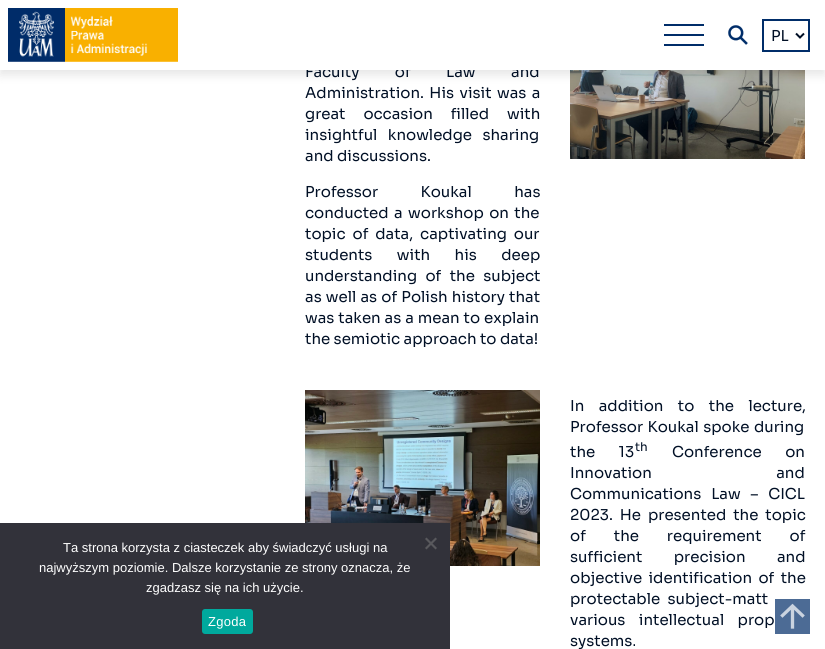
import math
import cairo


def write_spaced(ctx, x, y, s, letter, word):
	ctx.move_to(x, y)
	for ch in s:
		ctx.show_text(ch)
		ctx.rel_move_to(letter + word * (ch == ' '), 0)

def round_path(ctx, x, y, w, h, r):
	ctx.new_sub_path()
	for i, (u, v) in enumerate([(x + w - r, y + h - r), (x + r, y + h - r), (x + r, y + r), (x + w - r, y + r)]):
		ctx.arc(u, v, r, i * math.pi / 2, (i + 1) * math.pi / 2)
	ctx.close_path()

def blur_box(ctx, x, y, w, h, r, blur, alpha):
	ctx.push_group_with_content(cairo.CONTENT_ALPHA)
	ctx.set_operator(cairo.OPERATOR_SOURCE)
	for i in range(15, -16, -2):
		e = blur * i / 6
		if min(w, h) + 2 * e > 0:
			ctx.set_source_rgba(0, 0, 0, alpha * math.erfc((i - 1) / 8.5) / 2)
			round_path(ctx, x - e, y - e, w + 2 * e, h + 2 * e, max(0, min(r + e + blur * .6, min(w, h) / 2 + e)))
			ctx.fill()
	ctx.mask(ctx.pop_group())

def paste(ctx, path, x, y, w, h):
	ctx.save()
	ctx.set_source_surface(cairo.ImageSurface.create_from_png(path), x, y)
	ctx.rectangle(x, y, w, h)
	ctx.fill()
	ctx.restore()

def draw(ctx):
	ctx.set_source_rgb(1, 1, 1)
	ctx.paint()
	paste(ctx, 'media/3.png', 570, 70, 235, 89)
	ctx.set_source_rgb(0, 0, 0)
	blur_box(ctx, 0, 5, 825, 70, 0, 5, 0.1)
	ctx.select_font_face('Sora')
	ctx.set_font_size(15)
	ctx.set_source_rgb(0, 0.059, 0.145)
	write_spaced(ctx, 305, 77, 'Faculty of Law and', 0, 32)
	ctx.set_source_rgb(1, 1, 1)
	ctx.rectangle(0, 0, 825, 70)
	ctx.fill()
	paste(ctx, 'media/1.png', 8, 8, 170, 54)
	ctx.set_source_rgb(0, 0.176, 0.412)
	ctx.rectangle(664, 24, 40, 2)
	ctx.rectangle(664, 34, 40, 2)
	ctx.rectangle(664, 44, 40, 2)
	ctx.fill()
	paste(ctx, 'media/2.png', 728, 25, 20, 20)
	ctx.rectangle(763, 20, 46, 31)
	ctx.stroke()
	ctx.new_path()
	ctx.move_to(796, 33.5)
	ctx.line_to(800, 37.5)
	ctx.line_to(804, 33.5)
	ctx.set_source_rgb(0, 0.059, 0.145)
	ctx.stroke()
	ctx.move_to(771, 41)
	ctx.show_text('PL')
	paste(ctx, 'media/4.png', 305, 390, 235, 176)
	ctx.set_source_rgb(0.196, 0.196, 0.227)
	ctx.rectangle(0, 523, 450, 126)
	ctx.fill()
	ctx.select_font_face('Liberation Sans')
	ctx.set_font_size(13)
	ctx.set_source_rgb(1, 1, 1)
	for x, y, s in [
		(63, 552, 'Ta strona korzysta z ciasteczek aby świadczyć usługi na'),
		(39, 572, 'najwyższym poziomie. Dalsze korzystanie ze strony oznacza, że'),
		(146, 592, 'zgadzasz się na ich użycie.'),
	]:
		ctx.move_to(x, y)
		ctx.show_text(s)
	ctx.set_source_rgb(0.349, 0.349, 0.365)
	ctx.new_path()
	ctx.move_to(435.5, 537.5)
	ctx.line_to(437, 539)
	ctx.line_to(426.5, 549.5)
	ctx.line_to(425, 548)
	ctx.close_path()
	ctx.fill()
	ctx.new_path()
	ctx.move_to(425, 539)
	ctx.line_to(426.5, 537.5)
	ctx.line_to(437, 548)
	ctx.line_to(435.5, 549.5)
	ctx.close_path()
	ctx.fill()
	ctx.set_source_rgb(0, 0.663, 0.616)
	round_path(ctx, 202, 609, 51, 25, 3)
	ctx.fill()
	ctx.set_source_rgb(1, 1, 1)
	write_spaced(ctx, 208, 626, 'Zgoda', 0.25, 0)
	ctx.select_font_face('Sora')
	ctx.set_font_size(15)
	ctx.set_source_rgb(0, 0.059, 0.145)
	write_spaced(ctx, 305, 98, 'Administration. His visit was a', 0, 2)
	write_spaced(ctx, 305, 119, 'great occasion filled with', 0, 14.5)
	write_spaced(ctx, 305, 140, 'insightful knowledge sharing', 0, 7)
	ctx.move_to(305, 161)
	ctx.show_text('and discussions.')
	write_spaced(ctx, 305, 197, 'Professor Koukal has', 0, 39)
	write_spaced(ctx, 305, 218, 'conducted a workshop on the', 0, 2)
	write_spaced(ctx, 305, 239, 'topic of data, captivating our', 0, 3.5)
	write_spaced(ctx, 305, 260, 'students with his deep', 0, 21)
	write_spaced(ctx, 305, 281, 'understanding of the subject', 0, 5)
	write_spaced(ctx, 305, 302, 'as well as of Polish history that', 0, 0.75)
	write_spaced(ctx, 305, 323, 'was taken as a mean to explain', 0, 0.5)
	ctx.move_to(305, 344)
	ctx.show_text('the semiotic approach to data!')
	write_spaced(ctx, 570, 411, 'In addition to the lecture,', 0, 11)
	write_spaced(ctx, 570, 432, 'Professor Koukal spoke during', 0, 1)
	write_spaced(ctx, 570, 457, 'the 13', 0, 20)
	ctx.set_font_size(12)
	ctx.move_to(635, 451)
	ctx.show_text('th')
	ctx.set_font_size(15)
	write_spaced(ctx, 672, 457, 'Conference on', 0, 20)
	write_spaced(ctx, 570, 478, 'Innovation and', 0, 121)
	write_spaced(ctx, 570, 499, 'Communications Law – CICL', 0, 6.5)
	write_spaced(ctx, 570, 520, '2023. He presented the topic', 0, 3.5)
	write_spaced(ctx, 570, 541, 'of the requirement of', 0, 24.5)
	write_spaced(ctx, 570, 562, 'sufficient precision and', 0, 28)
	write_spaced(ctx, 570, 583, 'objective identification of the', 0, 3)
	write_spaced(ctx, 570, 604, 'protectable subject-matt', 0, 4)
	write_spaced(ctx, 570, 625, 'various intellectual prop', 0, 10)
	ctx.move_to(570, 646)
	ctx.show_text('systems.')
	ctx.set_source_rgba(0, 0.173, 0.412, 0.7)
	ctx.rectangle(775, 599, 35, 35)
	ctx.fill()
	ctx.new_path()
	ctx.move_to(782.5, 615.5)
	ctx.line_to(792.5, 606)
	ctx.line_to(802.5, 615.5)
	ctx.move_to(792.5, 607)
	ctx.line_to(792.5, 627)
	ctx.set_source_rgba(1, 1, 1, 0.7)
	ctx.set_line_width(3.3)
	ctx.set_line_cap(cairo.LINE_CAP_SQUARE)
	ctx.stroke()


surface = cairo.ImageSurface(cairo.FORMAT_RGB24, 825, 649)
ctx = cairo.Context(surface)
options = cairo.FontOptions()
options.set_hint_metrics(cairo.HINT_METRICS_OFF)
options.set_hint_style(cairo.HINT_STYLE_NONE)
ctx.set_font_options(options)
ctx.set_miter_limit(4)
draw(ctx)
surface.write_to_png('image.png')
